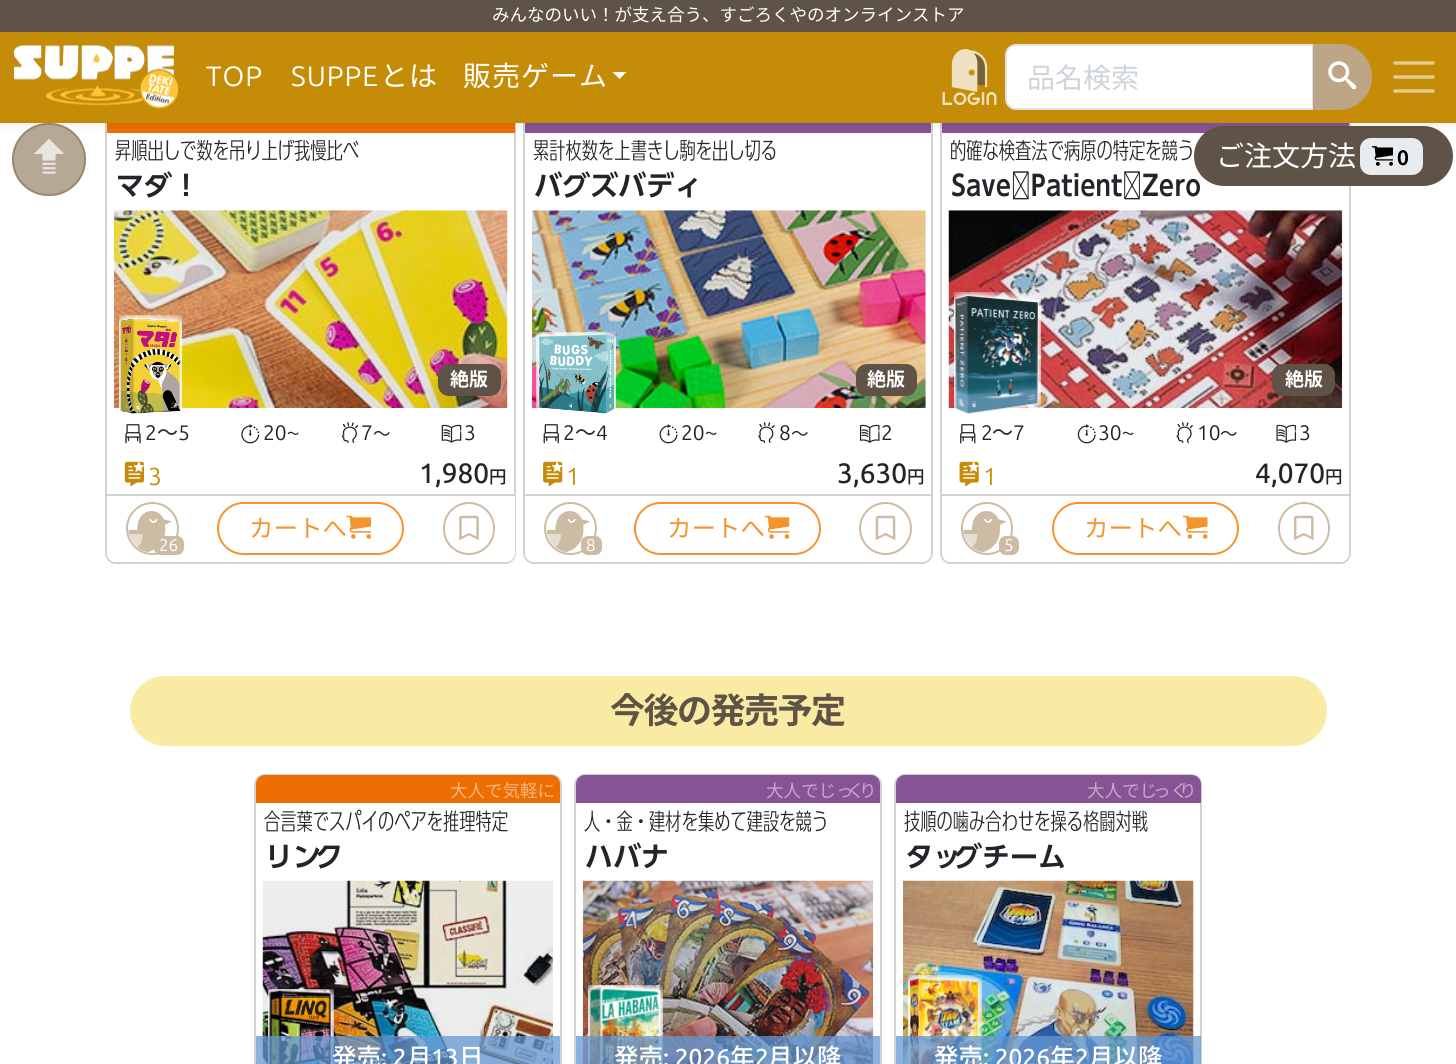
import math
import cairo


def write_spaced(ctx, x, y, s, letter, word):
	ctx.move_to(x, y)
	for ch in s:
		ctx.show_text(ch)
		ctx.rel_move_to(letter + word * (ch == ' '), 0)

def round_path(ctx, x, y, w, h, r):
	ctx.new_sub_path()
	for i, (u, v) in enumerate([(x + w - r, y + h - r), (x + r, y + h - r), (x + r, y + r), (x + w - r, y + r)]):
		ctx.arc(u, v, r, i * math.pi / 2, (i + 1) * math.pi / 2)
	ctx.close_path()

def blur_box(ctx, x, y, w, h, r, blur, alpha):
	ctx.push_group_with_content(cairo.CONTENT_ALPHA)
	ctx.set_operator(cairo.OPERATOR_SOURCE)
	for i in range(15, -16, -2):
		e = blur * i / 6
		if min(w, h) + 2 * e > 0:
			ctx.set_source_rgba(0, 0, 0, alpha * math.erfc((i - 1) / 8.5) / 2)
			round_path(ctx, x - e, y - e, w + 2 * e, h + 2 * e, max(0, min(r + e + blur * .6, min(w, h) / 2 + e)))
			ctx.fill()
	ctx.mask(ctx.pop_group())

def paste(ctx, path, x, y, w, h):
	ctx.save()
	ctx.set_source_surface(cairo.ImageSurface.create_from_png(path), x, y)
	ctx.rectangle(x, y, w, h)
	ctx.fill()
	ctx.restore()

def draw(ctx):
	ctx.set_source_rgb(1, 1, 1)
	ctx.paint()
	round_path(ctx, 106, 104, 409, 459, 10)
	ctx.set_source_rgb(0.824, 0.824, 0.824)
	ctx.stroke()
	ctx.set_source_rgb(0.929, 0.427, 0)
	ctx.rectangle(107, 123, 408, 10)
	ctx.fill()
	round_path(ctx, 524, 104, 408, 459, 10)
	ctx.set_source_rgb(0.824, 0.824, 0.824)
	ctx.stroke()
	ctx.set_source_rgb(0.533, 0.325, 0.58)
	ctx.rectangle(525, 123, 406, 10)
	ctx.fill()
	round_path(ctx, 941, 104, 409, 459, 10)
	ctx.set_source_rgb(0.824, 0.824, 0.824)
	ctx.stroke()
	ctx.set_source_rgb(0.533, 0.325, 0.58)
	ctx.rectangle(942, 123, 407, 10)
	ctx.fill()
	ctx.set_source_rgb(0.369, 0.325, 0.275)
	round_path(ctx, 1195, 127, 257, 58, 29)
	ctx.fill_preserve()
	ctx.stroke()
	ctx.set_source_rgb(0, 0, 0)
	blur_box(ctx, 0, 4, 1456, 122, 0, 3.5, 0.07)
	ctx.set_source_rgb(0.369, 0.325, 0.275)
	ctx.rectangle(0, 0, 1456, 32)
	ctx.fill()
	ctx.select_font_face('Noto Sans JP')
	ctx.set_font_size(17.5)
	ctx.set_source_rgb(1, 1, 1)
	ctx.move_to(492, 21)
	ctx.show_text('みんなのいい！が支え合う、すごろくやのオンラインストア')
	ctx.set_source_rgb(0.769, 0.549, 0.031)
	ctx.rectangle(0, 32, 1456, 91)
	ctx.fill()
	paste(ctx, 'media/1.png', 14, 45, 165, 64)
	ctx.select_font_face('Ubuntu')
	ctx.set_font_size(28)
	ctx.set_source_rgb(1, 1, 1)
	write_spaced(ctx, 206, 86, 'TOP', 1, 0)
	write_spaced(ctx, 291, 86, 'SUPPE', 1, 0)
	ctx.select_font_face('Noto Sans JP')
	write_spaced(ctx, 380, 86, 'とは', 1, 0)
	write_spaced(ctx, 463, 86, '販売ゲーム', 1, 0)
	ctx.new_path()
	ctx.move_to(612.5, 72)
	ctx.line_to(626.5, 72)
	ctx.line_to(619.5, 79)
	ctx.close_path()
	ctx.fill()
	paste(ctx, 'media/2.png', 942, 49, 55, 56)
	ctx.new_path()
	ctx.move_to(1016, 45)
	ctx.line_to(1313, 45)
	ctx.line_to(1313, 109)
	ctx.line_to(1016, 109)
	ctx.curve_to(1010.5, 109, 1006, 104.5, 1006, 99)
	ctx.line_to(1006, 55)
	ctx.curve_to(1006, 49.5, 1010.5, 45, 1016, 45)
	ctx.close_path()
	ctx.fill_preserve()
	ctx.set_source_rgb(0.871, 0.886, 0.902)
	ctx.stroke()
	ctx.set_source_rgb(0.808, 0.831, 0.855)
	ctx.move_to(1027, 88)
	ctx.show_text('品名検索')
	ctx.set_source_rgb(0.737, 0.651, 0.522)
	ctx.new_path()
	ctx.move_to(1314, 45)
	ctx.line_to(1339, 45)
	ctx.curve_to(1356.5, 45, 1371, 59.5, 1371, 77)
	ctx.curve_to(1371, 94.5, 1356.5, 109, 1339, 109)
	ctx.line_to(1314, 109)
	ctx.close_path()
	ctx.fill_preserve()
	ctx.stroke()
	paste(ctx, 'media/3.png', 1328, 61, 29, 29)
	ctx.new_path()
	ctx.move_to(1395, 63)
	ctx.line_to(1433, 63)
	ctx.move_to(1395, 77)
	ctx.line_to(1433, 77)
	ctx.move_to(1395, 91)
	ctx.line_to(1433, 91)
	ctx.set_source_rgb(0.894, 0.796, 0.565)
	ctx.set_line_width(3.5)
	ctx.set_line_cap(cairo.LINE_CAP_ROUND)
	ctx.stroke()
	ctx.set_source_rgba(0.588, 0.522, 0.416, 0.7)
	round_path(ctx, 12, 123, 74, 73, 36.5)
	ctx.fill()
	round_path(ctx, 13, 124, 72, 71, 35.5)
	ctx.set_source_rgba(0.553, 0.49, 0.392, 0.7)
	ctx.set_line_width(2)
	ctx.set_line_cap(cairo.LINE_CAP_BUTT)
	ctx.stroke()
	paste(ctx, 'media/4.png', 34, 139, 30, 35)
	ctx.save()
	ctx.rectangle(110, 140, 405, 23)
	ctx.clip()
	ctx.select_font_face('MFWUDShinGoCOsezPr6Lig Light')
	ctx.set_font_size(23.25)
	ctx.set_source_rgb(0.129, 0.145, 0.161)
	ctx.move_to(115, 159)
	ctx.show_text('昇順出しで数を吊り上げ我慢比べ')
	ctx.restore()
	ctx.select_font_face('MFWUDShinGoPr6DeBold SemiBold')
	ctx.set_source_rgb(0.129, 0.145, 0.161)
	ctx.move_to(116, 196)
	ctx.show_text('マダ！')
	paste(ctx, 'media/5.png', 113, 210, 395, 198)
	paste(ctx, 'media/6.png', 119, 315, 63, 99)
	ctx.set_source_rgb(0.369, 0.325, 0.275)
	round_path(ctx, 438, 364, 63, 32, 11)
	ctx.fill()
	ctx.select_font_face('Noto Sans JP', cairo.FONT_SLANT_NORMAL, cairo.FONT_WEIGHT_BOLD)
	ctx.set_font_size(19)
	ctx.set_source_rgb(1, 1, 1)
	ctx.move_to(450, 386)
	ctx.show_text('絶版')
	paste(ctx, 'media/7.png', 125, 424, 16, 20)
	ctx.select_font_face('Ubuntu')
	ctx.set_font_size(21)
	ctx.set_source_rgb(0.129, 0.145, 0.161)
	ctx.move_to(145, 440)
	ctx.show_text('2')
	ctx.select_font_face('Noto Sans JP')
	ctx.move_to(157, 440)
	ctx.show_text('〜')
	ctx.select_font_face('Ubuntu')
	ctx.move_to(178, 440)
	ctx.show_text('5')
	paste(ctx, 'media/8.png', 241, 424, 19, 20)
	ctx.move_to(263, 440)
	ctx.show_text('20')
	ctx.select_font_face('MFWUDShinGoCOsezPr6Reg')
	ctx.set_font_size(17.5)
	ctx.move_to(287, 440)
	ctx.show_text('〜')
	paste(ctx, 'media/9.png', 341, 422, 18, 22)
	ctx.select_font_face('Ubuntu')
	ctx.set_font_size(21)
	ctx.move_to(361, 440)
	ctx.show_text('7')
	ctx.select_font_face('Noto Sans JP')
	ctx.set_font_size(17.5)
	ctx.move_to(373, 440)
	ctx.show_text('〜')
	paste(ctx, 'media/10.png', 441, 424, 21, 19)
	ctx.select_font_face('Ubuntu')
	ctx.set_font_size(21)
	ctx.move_to(464, 440)
	ctx.show_text('3')
	paste(ctx, 'media/11.png', 124, 461, 20, 26)
	ctx.set_font_size(24.5)
	ctx.set_source_rgb(0.769, 0.549, 0.031)
	ctx.move_to(148, 485)
	ctx.show_text('3')
	ctx.select_font_face('Ubuntu Medium')
	ctx.set_font_size(28)
	ctx.set_source_rgb(0.129, 0.145, 0.161)
	ctx.move_to(419, 483)
	ctx.show_text('1,980')
	ctx.select_font_face('Noto Sans JP Medium')
	ctx.set_font_size(17.5)
	ctx.move_to(489, 483)
	ctx.show_text('円')
	ctx.set_source_rgb(1, 1, 1)
	ctx.new_path()
	ctx.move_to(107, 494)
	ctx.line_to(515, 494)
	ctx.line_to(515, 553)
	ctx.curve_to(515, 558, 511, 562, 506, 562)
	ctx.line_to(116, 562)
	ctx.curve_to(111, 562, 107, 558, 107, 553)
	ctx.close_path()
	ctx.fill()
	ctx.set_source_rgb(0.824, 0.824, 0.824)
	ctx.rectangle(107, 494, 408, 2)
	ctx.fill()
	round_path(ctx, 218, 503, 185, 51, 25.5)
	ctx.set_source_rgb(0.957, 0.58, 0.18)
	ctx.stroke()
	ctx.select_font_face('Noto Sans JP')
	ctx.set_font_size(24.5)
	ctx.move_to(249, 537)
	ctx.show_text('カートへ')
	paste(ctx, 'media/12.png', 346, 515, 25, 24)
	round_path(ctx, 444, 503, 50, 51, 25)
	ctx.set_source_rgb(0.804, 0.737, 0.643)
	ctx.stroke()
	paste(ctx, 'media/13.png', 459, 515, 20, 26)
	ctx.arc(152.5, 528.5, 25.5, 0, 2 * math.pi)
	ctx.stroke()
	paste(ctx, 'media/14.png', 128, 511, 44, 41)
	round_path(ctx, 154, 536, 30, 19, 7)
	ctx.fill()
	ctx.select_font_face('Ubuntu')
	ctx.set_font_size(17)
	ctx.set_source_rgb(1, 1, 1)
	ctx.move_to(159, 551)
	ctx.show_text('26')
	ctx.save()
	ctx.rectangle(529, 140, 402, 23)
	ctx.clip()
	ctx.select_font_face('MFWUDShinGoCOsezPr6Lig Light')
	ctx.set_font_size(23.25)
	ctx.set_source_rgb(0.129, 0.145, 0.161)
	ctx.move_to(533, 159)
	ctx.show_text('累計枚数を上書きし駒を出し切る')
	ctx.restore()
	ctx.select_font_face('MFWUDShinGoPr6DeBold SemiBold')
	ctx.set_font_size(28)
	ctx.set_source_rgb(0.129, 0.145, 0.161)
	ctx.move_to(534, 196)
	ctx.show_text('バグズバディ')
	paste(ctx, 'media/15.png', 532, 210, 394, 198)
	paste(ctx, 'media/16.png', 536, 332, 80, 82)
	ctx.set_source_rgb(0.369, 0.325, 0.275)
	round_path(ctx, 856, 364, 61, 32, 11)
	ctx.fill()
	ctx.select_font_face('Noto Sans JP', cairo.FONT_SLANT_NORMAL, cairo.FONT_WEIGHT_BOLD)
	ctx.set_font_size(19)
	ctx.set_source_rgb(1, 1, 1)
	ctx.move_to(867, 386)
	ctx.show_text('絶版')
	paste(ctx, 'media/17.png', 543, 424, 16, 20)
	ctx.select_font_face('Ubuntu')
	ctx.set_font_size(21)
	ctx.set_source_rgb(0.129, 0.145, 0.161)
	ctx.move_to(563, 440)
	ctx.show_text('2')
	ctx.select_font_face('Noto Sans JP')
	ctx.move_to(575, 440)
	ctx.show_text('〜')
	ctx.select_font_face('Ubuntu')
	ctx.move_to(596, 440)
	ctx.show_text('4')
	paste(ctx, 'media/18.png', 659, 424, 19, 20)
	ctx.move_to(681, 440)
	ctx.show_text('20')
	ctx.select_font_face('MFWUDShinGoCOsezPr6Reg')
	ctx.set_font_size(17.5)
	ctx.move_to(705, 440)
	ctx.show_text('〜')
	paste(ctx, 'media/19.png', 758, 422, 17, 22)
	ctx.select_font_face('Ubuntu')
	ctx.set_font_size(21)
	ctx.move_to(779, 440)
	ctx.show_text('8')
	ctx.select_font_face('Noto Sans JP')
	ctx.set_font_size(17.5)
	ctx.move_to(791, 440)
	ctx.show_text('〜')
	paste(ctx, 'media/20.png', 859, 424, 21, 19)
	ctx.select_font_face('Ubuntu')
	ctx.set_font_size(21)
	ctx.move_to(881, 440)
	ctx.show_text('2')
	paste(ctx, 'media/21.png', 543, 461, 20, 26)
	ctx.set_font_size(24.5)
	ctx.set_source_rgb(0.769, 0.549, 0.031)
	ctx.move_to(566, 485)
	ctx.show_text('1')
	ctx.select_font_face('Ubuntu Medium')
	ctx.set_font_size(28)
	ctx.set_source_rgb(0.129, 0.145, 0.161)
	ctx.move_to(837, 483)
	ctx.show_text('3,630')
	ctx.select_font_face('Noto Sans JP Medium')
	ctx.set_font_size(17.5)
	ctx.move_to(907, 483)
	ctx.show_text('円')
	ctx.set_source_rgb(1, 1, 1)
	ctx.new_path()
	ctx.move_to(525, 494)
	ctx.line_to(931, 494)
	ctx.line_to(931, 553)
	ctx.curve_to(931, 558, 927, 562, 922, 562)
	ctx.line_to(534, 562)
	ctx.curve_to(529, 562, 525, 558, 525, 553)
	ctx.close_path()
	ctx.fill()
	ctx.set_source_rgb(0.824, 0.824, 0.824)
	ctx.rectangle(525, 494, 406, 2)
	ctx.fill()
	round_path(ctx, 635, 503, 185, 51, 25.5)
	ctx.set_source_rgb(0.957, 0.58, 0.18)
	ctx.stroke()
	ctx.select_font_face('Noto Sans JP')
	ctx.set_font_size(24.5)
	ctx.move_to(667, 537)
	ctx.show_text('カートへ')
	paste(ctx, 'media/22.png', 764, 515, 26, 24)
	ctx.arc(885.5, 528.5, 25.5, 0, 2 * math.pi)
	ctx.set_source_rgb(0.804, 0.737, 0.643)
	ctx.stroke()
	paste(ctx, 'media/23.png', 875, 515, 21, 25)
	ctx.arc(570.5, 528.5, 25.5, 0, 2 * math.pi)
	ctx.stroke()
	paste(ctx, 'media/24.png', 546, 511, 44, 41)
	round_path(ctx, 581, 536, 21, 19, 7)
	ctx.fill()
	ctx.select_font_face('Ubuntu')
	ctx.set_font_size(17)
	ctx.set_source_rgb(1, 1, 1)
	ctx.move_to(586, 551)
	ctx.show_text('8')
	ctx.save()
	ctx.rectangle(945, 140, 404, 23)
	ctx.clip()
	ctx.select_font_face('MFWUDShinGoCOsezPr6Lig Light')
	ctx.set_font_size(23.25)
	ctx.set_source_rgb(0.129, 0.145, 0.161)
	ctx.move_to(950, 159)
	ctx.show_text('的確な検査法で病原の特定を競う')
	ctx.restore()
	ctx.select_font_face('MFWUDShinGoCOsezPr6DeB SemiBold')
	ctx.set_font_size(28)
	ctx.set_source_rgb(0.129, 0.145, 0.161)
	ctx.move_to(951, 196)
	ctx.show_text('Save Patient Zero')
	paste(ctx, 'media/25.png', 948, 210, 395, 198)
	paste(ctx, 'media/26.png', 954, 292, 87, 122)
	ctx.set_source_rgb(0.369, 0.325, 0.275)
	round_path(ctx, 1272, 364, 63, 32, 11)
	ctx.fill()
	ctx.select_font_face('Noto Sans JP', cairo.FONT_SLANT_NORMAL, cairo.FONT_WEIGHT_BOLD)
	ctx.set_font_size(19)
	ctx.set_source_rgb(1, 1, 1)
	ctx.move_to(1285, 386)
	ctx.show_text('絶版')
	paste(ctx, 'media/27.png', 960, 424, 16, 20)
	ctx.select_font_face('Ubuntu')
	ctx.set_font_size(21)
	ctx.set_source_rgb(0.129, 0.145, 0.161)
	ctx.move_to(981, 440)
	ctx.show_text('2')
	ctx.select_font_face('Noto Sans JP')
	ctx.move_to(992, 440)
	ctx.show_text('〜')
	ctx.select_font_face('Ubuntu')
	ctx.move_to(1013, 440)
	ctx.show_text('7')
	paste(ctx, 'media/28.png', 1077, 424, 19, 20)
	ctx.move_to(1098, 440)
	ctx.show_text('30')
	ctx.select_font_face('MFWUDShinGoCOsezPr6Reg')
	ctx.set_font_size(17.5)
	ctx.move_to(1122, 440)
	ctx.show_text('〜')
	paste(ctx, 'media/29.png', 1176, 422, 17, 22)
	ctx.select_font_face('Ubuntu')
	ctx.set_font_size(21)
	ctx.move_to(1197, 440)
	ctx.show_text('10')
	ctx.select_font_face('Noto Sans JP')
	ctx.set_font_size(17.5)
	ctx.move_to(1220, 440)
	ctx.show_text('〜')
	paste(ctx, 'media/30.png', 1276, 424, 21, 19)
	ctx.select_font_face('Ubuntu')
	ctx.set_font_size(21)
	ctx.move_to(1299, 440)
	ctx.show_text('3')
	paste(ctx, 'media/31.png', 959, 461, 20, 26)
	ctx.set_font_size(24.5)
	ctx.set_source_rgb(0.769, 0.549, 0.031)
	ctx.move_to(983, 485)
	ctx.show_text('1')
	ctx.select_font_face('Ubuntu Medium')
	ctx.set_font_size(28)
	ctx.set_source_rgb(0.129, 0.145, 0.161)
	ctx.move_to(1255, 483)
	ctx.show_text('4,070')
	ctx.select_font_face('Noto Sans JP Medium')
	ctx.set_font_size(17.5)
	ctx.move_to(1325, 483)
	ctx.show_text('円')
	ctx.set_source_rgb(1, 1, 1)
	ctx.new_path()
	ctx.move_to(942, 494)
	ctx.line_to(1349, 494)
	ctx.line_to(1349, 553)
	ctx.curve_to(1349, 558, 1345, 562, 1340, 562)
	ctx.line_to(951, 562)
	ctx.curve_to(946, 562, 942, 558, 942, 553)
	ctx.close_path()
	ctx.fill()
	ctx.set_source_rgb(0.824, 0.824, 0.824)
	ctx.rectangle(942, 494, 407, 2)
	ctx.fill()
	round_path(ctx, 1053, 503, 185, 51, 25.5)
	ctx.set_source_rgb(0.957, 0.58, 0.18)
	ctx.stroke()
	ctx.select_font_face('Noto Sans JP')
	ctx.set_font_size(24.5)
	ctx.move_to(1084, 537)
	ctx.show_text('カートへ')
	paste(ctx, 'media/32.png', 1183, 515, 25, 24)
	round_path(ctx, 1279, 503, 50, 51, 25)
	ctx.set_source_rgb(0.804, 0.737, 0.643)
	ctx.stroke()
	paste(ctx, 'media/33.png', 1293, 515, 21, 26)
	round_path(ctx, 962, 503, 50, 51, 25)
	ctx.stroke()
	paste(ctx, 'media/34.png', 963, 511, 44, 41)
	round_path(ctx, 999, 536, 20, 19, 7)
	ctx.fill()
	ctx.select_font_face('Ubuntu')
	ctx.set_font_size(17)
	ctx.set_source_rgb(1, 1, 1)
	ctx.move_to(1004, 551)
	ctx.show_text('5')
	ctx.set_source_rgb(0.973, 0.918, 0.639)
	round_path(ctx, 130, 676, 1197, 70, 35)
	ctx.fill()
	ctx.select_font_face('Noto Sans JP', cairo.FONT_SLANT_NORMAL, cairo.FONT_WEIGHT_BOLD)
	ctx.set_font_size(35)
	ctx.set_source_rgb(0.369, 0.325, 0.275)
	write_spaced(ctx, 610, 723, '今後の発売予定', -1.5, 0)
	round_path(ctx, 255, 775, 306, 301, 10)
	ctx.set_source_rgb(0.824, 0.824, 0.824)
	ctx.stroke()
	ctx.set_source_rgb(0.929, 0.427, 0)
	ctx.new_path()
	ctx.move_to(265, 775)
	ctx.line_to(551, 775)
	ctx.curve_to(556, 775, 560, 779, 560, 784)
	ctx.line_to(560, 803)
	ctx.line_to(256, 803)
	ctx.line_to(256, 784)
	ctx.curve_to(256, 779, 260, 775, 265, 775)
	ctx.close_path()
	ctx.fill()
	ctx.select_font_face('Noto Sans JP')
	ctx.set_font_size(17.5)
	ctx.set_source_rgb(0.965, 0.714, 0.502)
	ctx.move_to(450, 797)
	ctx.show_text('大人で気軽に')
	ctx.select_font_face('MFWUDShinGoCOsezPr6Lig Light')
	ctx.set_font_size(23.25)
	ctx.set_source_rgb(0.129, 0.145, 0.161)
	ctx.move_to(264, 830)
	ctx.show_text('合言葉でスパイのペアを推理特定')
	ctx.select_font_face('MFWUDShinGoPr6DeBold SemiBold')
	ctx.set_font_size(28)
	ctx.move_to(265, 867)
	ctx.show_text('リン')
	ctx.move_to(315, 867)
	ctx.show_text('ク')
	paste(ctx, 'media/35.png', 262, 880, 291, 184)
	paste(ctx, 'media/36.png', 268, 989, 66, 75)
	ctx.set_source_rgba(0.392, 0.592, 0.824, 0.75)
	ctx.rectangle(256, 1036, 304, 28)
	ctx.fill()
	ctx.select_font_face('Noto Sans JP Medium')
	ctx.set_font_size(24.5)
	ctx.set_source_rgb(1, 1, 1)
	ctx.move_to(332, 1066)
	ctx.show_text('発売')
	ctx.select_font_face('Ubuntu Medium')
	ctx.move_to(381, 1066)
	ctx.show_text(': 2')
	ctx.select_font_face('Noto Sans JP Medium')
	ctx.move_to(407, 1066)
	ctx.show_text('月')
	ctx.select_font_face('Ubuntu Medium')
	ctx.move_to(431, 1066)
	ctx.show_text('13')
	ctx.select_font_face('Noto Sans JP Medium')
	ctx.move_to(459, 1066)
	ctx.show_text('日')
	round_path(ctx, 575, 775, 306, 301, 10)
	ctx.set_source_rgb(0.824, 0.824, 0.824)
	ctx.stroke()
	ctx.set_source_rgb(0.533, 0.325, 0.58)
	ctx.new_path()
	ctx.move_to(585, 775)
	ctx.line_to(871, 775)
	ctx.curve_to(876, 775, 880, 779, 880, 784)
	ctx.line_to(880, 803)
	ctx.line_to(576, 803)
	ctx.line_to(576, 784)
	ctx.curve_to(576, 779, 580, 775, 585, 775)
	ctx.close_path()
	ctx.fill()
	ctx.select_font_face('Noto Sans JP')
	ctx.set_font_size(17.5)
	ctx.set_source_rgb(0.769, 0.663, 0.792)
	ctx.move_to(766, 797)
	ctx.show_text('大人でじっ')
	ctx.move_to(847, 797)
	ctx.show_text('く')
	ctx.move_to(859, 797)
	ctx.show_text('り')
	ctx.select_font_face('MFWUDShinGoCOsezPr6Lig Light')
	ctx.set_font_size(23.25)
	ctx.set_source_rgb(0.129, 0.145, 0.161)
	ctx.move_to(584, 830)
	ctx.show_text('人・金・建材を集めて建設を競う')
	ctx.select_font_face('MFWUDShinGoPr6DeBold SemiBold')
	ctx.set_font_size(28)
	ctx.move_to(585, 867)
	ctx.show_text('ハバナ')
	paste(ctx, 'media/37.png', 582, 880, 292, 184)
	paste(ctx, 'media/38.png', 588, 985, 75, 79)
	ctx.set_source_rgba(0.392, 0.592, 0.824, 0.75)
	ctx.rectangle(576, 1036, 304, 28)
	ctx.fill()
	ctx.select_font_face('Noto Sans JP Medium')
	ctx.set_font_size(24.5)
	ctx.set_source_rgb(1, 1, 1)
	ctx.move_to(614, 1066)
	ctx.show_text('発売')
	ctx.select_font_face('Ubuntu Medium')
	ctx.move_to(663, 1066)
	ctx.show_text(': 2026')
	ctx.select_font_face('Noto Sans JP Medium')
	ctx.move_to(730, 1066)
	ctx.show_text('年')
	ctx.select_font_face('Ubuntu Medium')
	ctx.move_to(755, 1066)
	ctx.show_text('2')
	ctx.select_font_face('Noto Sans JP Medium')
	ctx.move_to(768, 1066)
	ctx.show_text('月以降')
	round_path(ctx, 895, 775, 306, 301, 10)
	ctx.set_source_rgb(0.824, 0.824, 0.824)
	ctx.stroke()
	ctx.set_source_rgb(0.533, 0.325, 0.58)
	ctx.new_path()
	ctx.move_to(905, 775)
	ctx.line_to(1192, 775)
	ctx.curve_to(1197, 775, 1201, 779, 1201, 784)
	ctx.line_to(1201, 803)
	ctx.line_to(896, 803)
	ctx.line_to(896, 784)
	ctx.curve_to(896, 779, 900, 775, 905, 775)
	ctx.close_path()
	ctx.fill()
	ctx.select_font_face('Noto Sans JP')
	ctx.set_font_size(17.5)
	ctx.set_source_rgb(0.769, 0.663, 0.792)
	ctx.move_to(1087, 797)
	ctx.show_text('大人でじ')
	ctx.move_to(1153, 797)
	ctx.show_text('っく')
	ctx.move_to(1179, 797)
	ctx.show_text('り')
	ctx.select_font_face('MFWUDShinGoCOsezPr6Lig Light')
	ctx.set_font_size(23.25)
	ctx.set_source_rgb(0.129, 0.145, 0.161)
	ctx.move_to(904, 830)
	ctx.show_text('技順の噛み合わせを操る格闘対戦')
	ctx.select_font_face('MFWUDShinGoPr6DeBold SemiBold')
	ctx.set_font_size(28)
	ctx.move_to(905, 867)
	ctx.show_text('タッ')
	ctx.move_to(954, 867)
	ctx.show_text('グチーム')
	paste(ctx, 'media/39.png', 903, 880, 291, 184)
	paste(ctx, 'media/40.png', 908, 975, 74, 89)
	ctx.set_source_rgba(0.392, 0.592, 0.824, 0.75)
	ctx.rectangle(896, 1036, 305, 28)
	ctx.fill()
	ctx.select_font_face('Noto Sans JP Medium')
	ctx.set_font_size(24.5)
	ctx.set_source_rgb(1, 1, 1)
	ctx.move_to(934, 1066)
	ctx.show_text('発売')
	ctx.select_font_face('Ubuntu Medium')
	ctx.move_to(983, 1066)
	ctx.show_text(': 2026')
	ctx.select_font_face('Noto Sans JP Medium')
	ctx.move_to(1050, 1066)
	ctx.show_text('年')
	ctx.select_font_face('Ubuntu Medium')
	ctx.move_to(1075, 1066)
	ctx.show_text('2')
	ctx.select_font_face('Noto Sans JP Medium')
	ctx.move_to(1089, 1066)
	ctx.show_text('月以降')
	ctx.select_font_face('Noto Sans JP')
	ctx.set_font_size(28)
	ctx.move_to(1216, 166)
	ctx.show_text('ご注文方法')
	ctx.set_source_rgb(0.914, 0.925, 0.937)
	round_path(ctx, 1360, 138, 63, 37, 11)
	ctx.fill()
	paste(ctx, 'media/41.png', 1372, 146, 21, 20)
	ctx.select_font_face('Ubuntu', cairo.FONT_SLANT_NORMAL, cairo.FONT_WEIGHT_BOLD)
	ctx.set_font_size(21)
	ctx.set_source_rgb(0, 0, 0)
	ctx.move_to(1397, 165)
	ctx.show_text('0')


surface = cairo.ImageSurface(cairo.FORMAT_RGB24, 1456, 1064)
ctx = cairo.Context(surface)
options = cairo.FontOptions()
options.set_hint_metrics(cairo.HINT_METRICS_OFF)
options.set_hint_style(cairo.HINT_STYLE_NONE)
ctx.set_font_options(options)
ctx.set_miter_limit(4)
draw(ctx)
surface.write_to_png('image.png')
